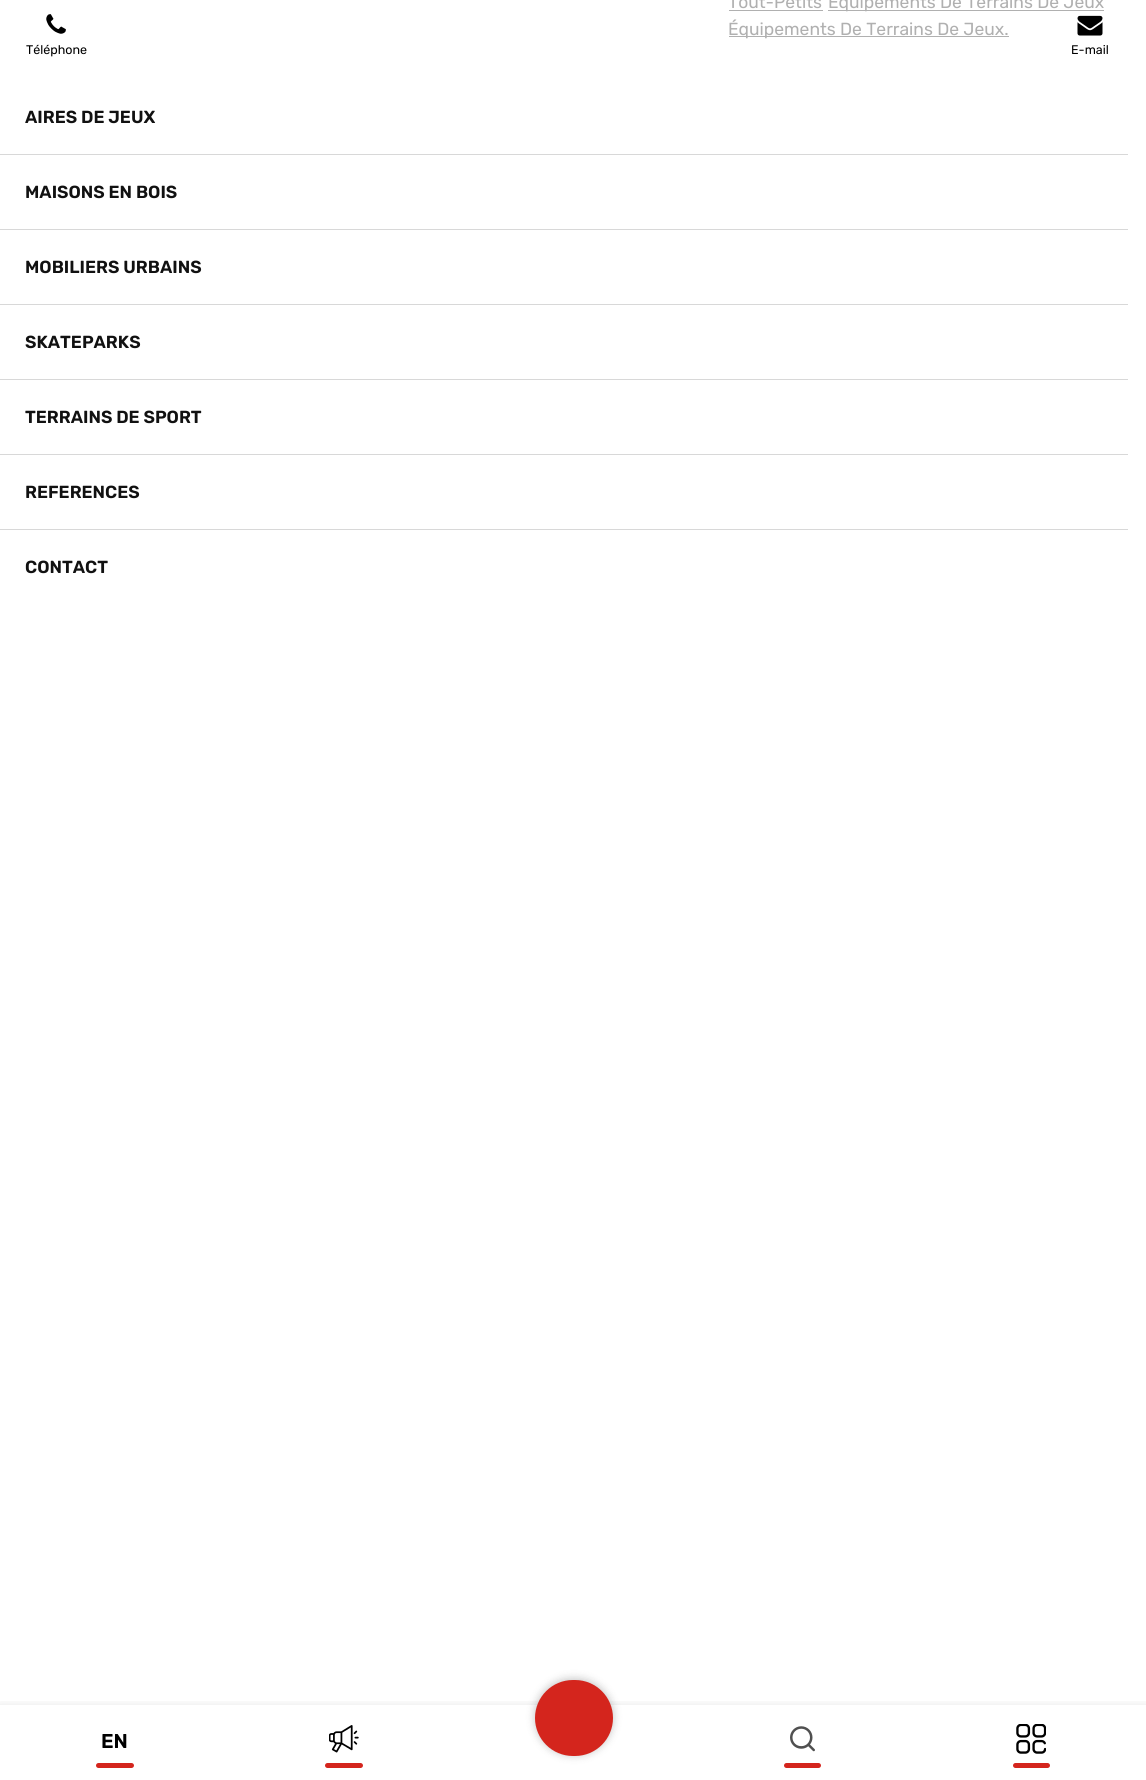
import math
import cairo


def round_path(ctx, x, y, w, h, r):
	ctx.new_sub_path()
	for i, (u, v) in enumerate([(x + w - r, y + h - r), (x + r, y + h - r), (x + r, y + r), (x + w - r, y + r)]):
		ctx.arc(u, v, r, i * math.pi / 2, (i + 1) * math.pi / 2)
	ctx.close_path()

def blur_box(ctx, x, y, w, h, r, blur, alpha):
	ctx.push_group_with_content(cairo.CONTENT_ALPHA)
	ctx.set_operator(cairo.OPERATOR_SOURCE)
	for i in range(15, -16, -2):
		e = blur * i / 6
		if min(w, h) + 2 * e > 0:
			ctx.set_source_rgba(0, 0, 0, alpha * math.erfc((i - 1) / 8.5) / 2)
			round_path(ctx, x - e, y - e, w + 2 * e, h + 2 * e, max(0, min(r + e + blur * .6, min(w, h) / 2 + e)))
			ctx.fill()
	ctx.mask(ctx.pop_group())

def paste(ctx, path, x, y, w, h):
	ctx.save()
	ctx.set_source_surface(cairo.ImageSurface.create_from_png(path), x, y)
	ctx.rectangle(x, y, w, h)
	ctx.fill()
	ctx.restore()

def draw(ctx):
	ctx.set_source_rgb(1, 1, 1)
	ctx.paint()
	ctx.select_font_face('Rubik')
	ctx.set_font_size(17.5)
	ctx.set_source_rgb(0.69, 0.69, 0.69)
	ctx.move_to(728, 8)
	ctx.show_text('Tout-Petits')
	ctx.rectangle(729, 10, 94, 1)
	ctx.fill()
	ctx.rectangle(828, 10, 276, 1)
	ctx.fill()
	ctx.move_to(828, 8)
	ctx.show_text('Équipements De Terrains De Jeux')
	ctx.rectangle(729, 36, 280, 1)
	ctx.fill()
	ctx.move_to(728, 35)
	ctx.show_text('Équipements De Terrains De Jeux.')
	paste(ctx, 'media/1.png', 46, 14, 20, 20)
	ctx.set_font_size(12.5)
	ctx.set_source_rgb(0, 0, 0)
	ctx.move_to(26, 54)
	ctx.show_text('Téléphone')
	paste(ctx, 'media/2.png', 1077, 15, 26, 21)
	ctx.move_to(1071, 54)
	ctx.show_text('E-mail')
	ctx.set_source_rgb(0.847, 0.847, 0.847)
	ctx.rectangle(0, 154, 1128, 1)
	ctx.fill()
	ctx.select_font_face('Rubik SemiBold')
	ctx.set_font_size(17.5)
	ctx.set_source_rgb(0.067, 0.067, 0.067)
	ctx.move_to(25, 123)
	ctx.show_text('AIRES DE JEUX')
	ctx.set_source_rgb(0.847, 0.847, 0.847)
	ctx.rectangle(0, 229, 1128, 1)
	ctx.fill()
	ctx.set_source_rgb(0.067, 0.067, 0.067)
	ctx.move_to(25, 198)
	ctx.show_text('MAISONS EN BOIS')
	ctx.set_source_rgb(0.847, 0.847, 0.847)
	ctx.rectangle(0, 304, 1128, 1)
	ctx.fill()
	ctx.set_source_rgb(0.067, 0.067, 0.067)
	ctx.move_to(25, 273)
	ctx.show_text('MOBILIERS URBAINS')
	ctx.set_source_rgb(0.847, 0.847, 0.847)
	ctx.rectangle(0, 379, 1128, 1)
	ctx.fill()
	ctx.set_source_rgb(0.067, 0.067, 0.067)
	ctx.move_to(25, 348)
	ctx.show_text('SKATEPARKS')
	ctx.set_source_rgb(0.847, 0.847, 0.847)
	ctx.rectangle(0, 454, 1128, 1)
	ctx.fill()
	ctx.set_source_rgb(0.067, 0.067, 0.067)
	ctx.move_to(25, 423)
	ctx.show_text('TERRAINS DE SPORT')
	ctx.set_source_rgb(0.847, 0.847, 0.847)
	ctx.rectangle(0, 529, 1128, 1)
	ctx.fill()
	ctx.set_source_rgb(0.067, 0.067, 0.067)
	ctx.move_to(25, 498)
	ctx.show_text('REFERENCES')
	ctx.move_to(25, 573)
	ctx.show_text('CONTACT')
	ctx.save()
	ctx.rectangle(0, 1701, 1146, 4)
	ctx.clip()
	ctx.set_source_rgb(0, 0, 0)
	blur_box(ctx, -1, 1703, 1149, 77, 0, 4, 0.07)
	ctx.restore()
	ctx.set_font_size(20)
	ctx.set_source_rgb(0, 0, 0)
	ctx.move_to(101, 1748)
	ctx.show_text('EN')
	ctx.set_source_rgb(0.831, 0.145, 0.114)
	round_path(ctx, 96, 1763, 38, 5, 2.5)
	ctx.fill()
	paste(ctx, 'media/3.png', 329, 1725, 30, 28)
	round_path(ctx, 325, 1763, 38, 5, 2.5)
	ctx.fill()
	ctx.set_source_rgb(0, 0, 0)
	blur_box(ctx, 534, 1678, 80, 78, 39, 4, 0.2)
	ctx.set_source_rgb(0.831, 0.145, 0.114)
	round_path(ctx, 535, 1680, 78, 76, 38)
	ctx.fill()
	paste(ctx, 'media/4.png', 790, 1726, 25, 26)
	round_path(ctx, 784, 1763, 37, 5, 2.5)
	ctx.fill()
	paste(ctx, 'media/5.png', 1016, 1724, 30, 30)
	round_path(ctx, 1013, 1763, 37, 5, 2.5)
	ctx.fill()


surface = cairo.ImageSurface(cairo.FORMAT_RGB24, 1146, 1780)
ctx = cairo.Context(surface)
options = cairo.FontOptions()
options.set_hint_metrics(cairo.HINT_METRICS_OFF)
options.set_hint_style(cairo.HINT_STYLE_NONE)
ctx.set_font_options(options)
ctx.set_miter_limit(4)
draw(ctx)
surface.write_to_png('image.png')
